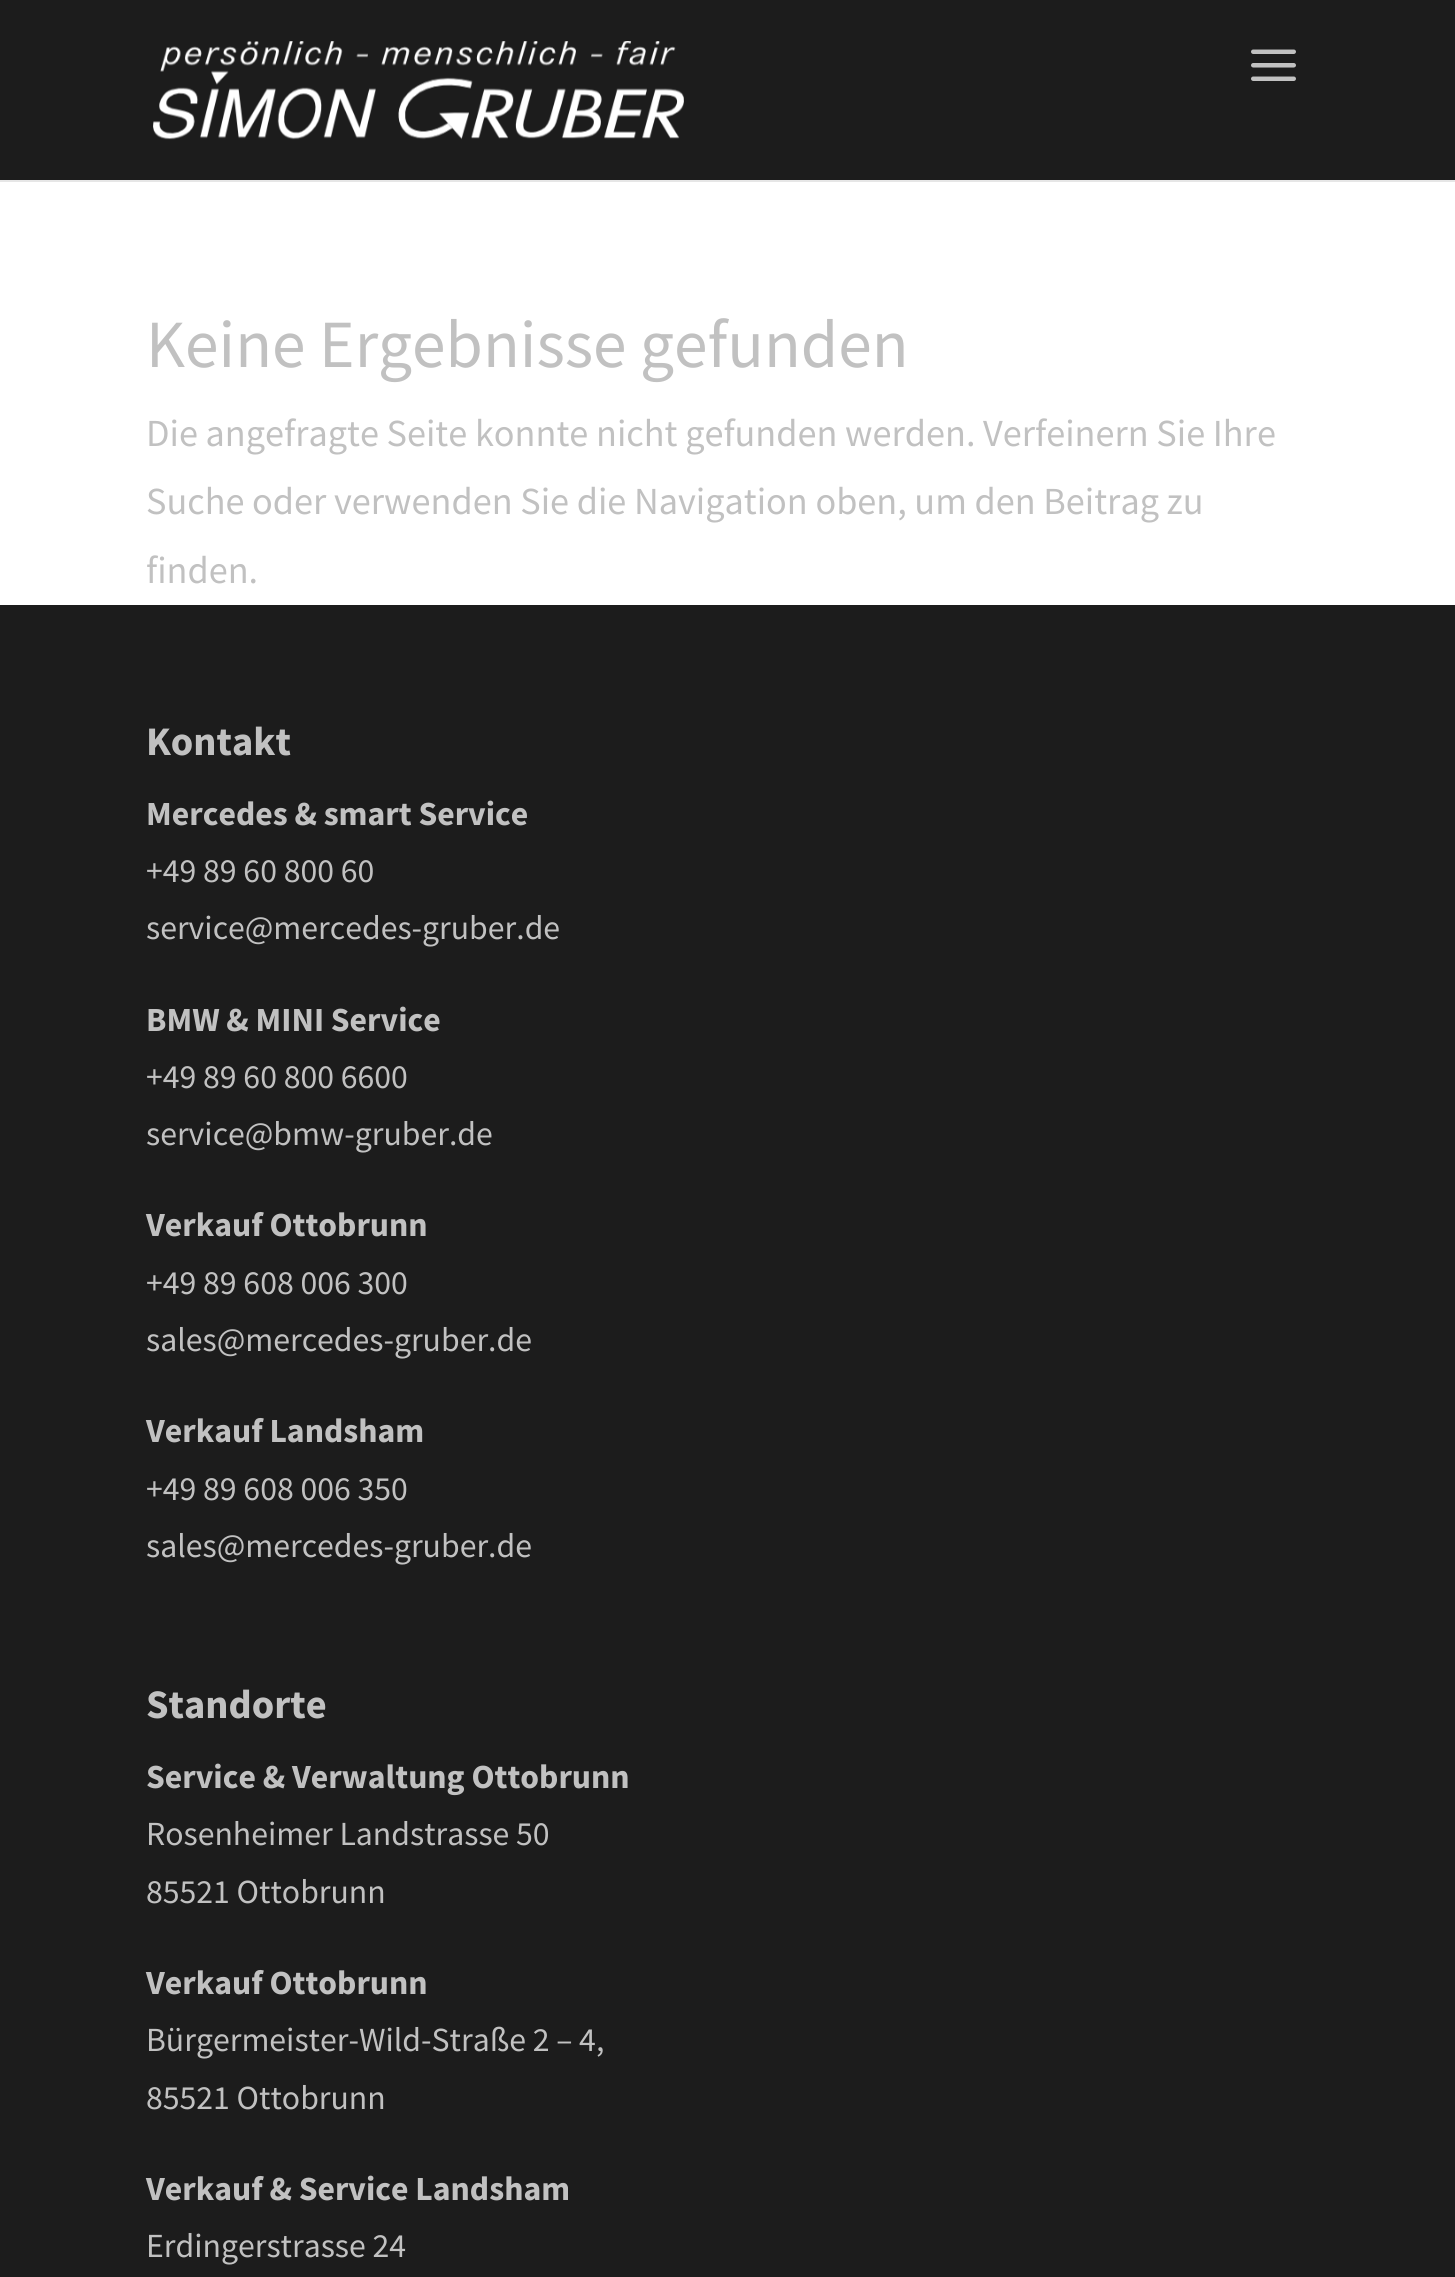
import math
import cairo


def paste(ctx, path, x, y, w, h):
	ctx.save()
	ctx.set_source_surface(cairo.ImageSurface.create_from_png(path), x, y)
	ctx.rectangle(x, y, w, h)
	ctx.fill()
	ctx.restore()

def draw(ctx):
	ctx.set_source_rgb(1, 1, 1)
	ctx.paint()
	ctx.set_source_rgb(0.902, 0.902, 0.902)
	ctx.new_path()
	ctx.move_to(0, 180)
	ctx.line_to(0, 182)
	ctx.line_to(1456, 182)
	ctx.line_to(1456, 2)
	ctx.line_to(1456, 180)
	ctx.close_path()
	ctx.fill()
	ctx.set_source_rgb(0.11, 0.11, 0.11)
	ctx.rectangle(0, 0, 1455, 180)
	ctx.fill()
	paste(ctx, 'media/1.png', 153, 41, 531, 99)
	paste(ctx, 'media/2.png', 1251, 49, 45, 32)
	ctx.select_font_face('Source Sans Pro')
	ctx.set_font_size(67.5)
	ctx.set_source_rgb(0.757, 0.757, 0.757)
	ctx.move_to(146, 367)
	ctx.show_text('Keine Ergebnisse gefunden')
	ctx.set_font_size(38.25)
	for x, y, s in [
		(146, 446, 'Die angefragte Seite konnte nicht gefunden werden. Verfeinern Sie Ihre'),
		(146, 514, 'Suche oder verwenden Sie die Navigation oben, um den Beitrag zu'),
		(146, 583, 'finden.'),
	]:
		ctx.move_to(x, y)
		ctx.show_text(s)
	ctx.set_source_rgb(0.11, 0.11, 0.11)
	ctx.rectangle(0, 605, 1455, 1672)
	ctx.fill()
	ctx.select_font_face('Source Sans Pro', cairo.FONT_SLANT_NORMAL, cairo.FONT_WEIGHT_BOLD)
	ctx.set_font_size(40.5)
	ctx.set_source_rgb(0.757, 0.757, 0.757)
	ctx.move_to(146, 755)
	ctx.show_text('Kontakt')
	ctx.set_font_size(33.75)
	ctx.move_to(146, 825)
	ctx.show_text('Mercedes & smart Service')
	ctx.select_font_face('Source Sans Pro')
	ctx.move_to(146, 882)
	ctx.show_text('+49 89 60 800 60')
	ctx.move_to(146, 939)
	ctx.show_text('service@mercedes-gruber.de')
	ctx.select_font_face('Source Sans Pro', cairo.FONT_SLANT_NORMAL, cairo.FONT_WEIGHT_BOLD)
	ctx.move_to(146, 1031)
	ctx.show_text('BMW & MINI Service')
	ctx.select_font_face('Source Sans Pro')
	ctx.move_to(146, 1088)
	ctx.show_text('+49 89 60 800 6600')
	ctx.move_to(146, 1145)
	ctx.show_text('service@bmw-gruber.de')
	ctx.select_font_face('Source Sans Pro', cairo.FONT_SLANT_NORMAL, cairo.FONT_WEIGHT_BOLD)
	ctx.move_to(146, 1236)
	ctx.show_text('Verkauf Ottobrunn')
	ctx.select_font_face('Source Sans Pro')
	ctx.move_to(146, 1294)
	ctx.show_text('+49 89 608 006 300')
	ctx.move_to(146, 1351)
	ctx.show_text('sales@mercedes-gruber.de')
	ctx.select_font_face('Source Sans Pro', cairo.FONT_SLANT_NORMAL, cairo.FONT_WEIGHT_BOLD)
	ctx.move_to(146, 1442)
	ctx.show_text('Verkauf Landsham')
	ctx.select_font_face('Source Sans Pro')
	ctx.move_to(146, 1500)
	ctx.show_text('+49 89 608 006 350')
	ctx.move_to(146, 1557)
	ctx.show_text('sales@mercedes-gruber.de')
	ctx.select_font_face('Source Sans Pro', cairo.FONT_SLANT_NORMAL, cairo.FONT_WEIGHT_BOLD)
	ctx.set_font_size(40.5)
	ctx.move_to(146, 1718)
	ctx.show_text('Standorte')
	ctx.set_font_size(33.75)
	ctx.move_to(146, 1788)
	ctx.show_text('Service & Verwaltung Ottobrunn')
	ctx.select_font_face('Source Sans Pro')
	ctx.move_to(146, 1845)
	ctx.show_text('Rosenheimer Landstrasse 50')
	ctx.move_to(146, 1903)
	ctx.show_text('85521 Ottobrunn')
	ctx.select_font_face('Source Sans Pro', cairo.FONT_SLANT_NORMAL, cairo.FONT_WEIGHT_BOLD)
	ctx.move_to(146, 1994)
	ctx.show_text('Verkauf Ottobrunn')
	ctx.select_font_face('Source Sans Pro')
	ctx.move_to(146, 2051)
	ctx.show_text('Bürgermeister-Wild-Straße 2 – 4,')
	ctx.move_to(146, 2109)
	ctx.show_text('85521 Ottobrunn')
	ctx.select_font_face('Source Sans Pro', cairo.FONT_SLANT_NORMAL, cairo.FONT_WEIGHT_BOLD)
	ctx.move_to(146, 2200)
	ctx.show_text('Verkauf & Service Landsham')
	ctx.select_font_face('Source Sans Pro')
	ctx.move_to(146, 2257)
	ctx.show_text('Erdingerstrasse 24')


surface = cairo.ImageSurface(cairo.FORMAT_RGB24, 1455, 2277)
ctx = cairo.Context(surface)
options = cairo.FontOptions()
options.set_hint_metrics(cairo.HINT_METRICS_OFF)
options.set_hint_style(cairo.HINT_STYLE_NONE)
ctx.set_font_options(options)
ctx.set_miter_limit(4)
draw(ctx)
surface.write_to_png('image.png')
